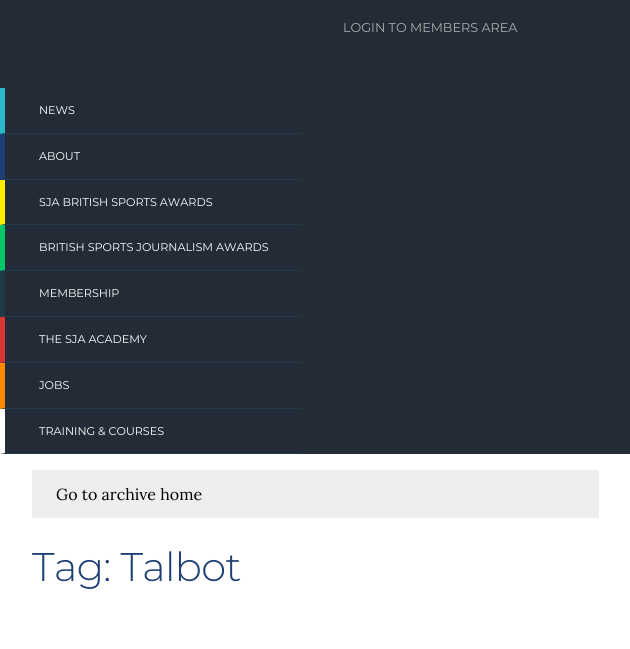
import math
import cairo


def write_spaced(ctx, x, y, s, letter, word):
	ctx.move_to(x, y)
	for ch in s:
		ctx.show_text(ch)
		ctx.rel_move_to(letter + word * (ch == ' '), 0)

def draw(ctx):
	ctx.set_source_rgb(1, 1, 1)
	ctx.paint()
	ctx.set_source_rgb(0.137, 0.173, 0.212)
	ctx.rectangle(0, 0, 630, 454)
	ctx.fill()
	ctx.select_font_face('Montserrat')
	ctx.set_font_size(12.75)
	ctx.set_source_rgb(0.675, 0.675, 0.675)
	ctx.move_to(343, 32)
	ctx.show_text('LOGIN TO MEMBERS AREA')
	ctx.set_source_rgb(0.129, 0.231, 0.282)
	ctx.new_path()
	ctx.move_to(302, 134)
	ctx.line_to(0, 134)
	ctx.line_to(5, 133)
	ctx.line_to(302, 133)
	ctx.close_path()
	ctx.fill()
	ctx.set_source_rgb(0.165, 0.725, 0.788)
	ctx.new_path()
	ctx.move_to(0, 134)
	ctx.line_to(0, 88)
	ctx.line_to(5, 88)
	ctx.line_to(5, 133)
	ctx.close_path()
	ctx.fill()
	ctx.set_font_size(11.2)
	ctx.set_source_rgb(1, 1, 1)
	ctx.move_to(39, 114)
	ctx.show_text('NEWS')
	ctx.set_source_rgb(0.129, 0.231, 0.282)
	ctx.new_path()
	ctx.move_to(302, 180)
	ctx.line_to(0, 180)
	ctx.line_to(5, 179)
	ctx.line_to(302, 179)
	ctx.close_path()
	ctx.fill()
	ctx.set_source_rgb(0.118, 0.247, 0.451)
	ctx.new_path()
	ctx.move_to(0, 180)
	ctx.line_to(0, 134)
	ctx.line_to(5, 134)
	ctx.line_to(5, 179)
	ctx.close_path()
	ctx.fill()
	ctx.set_source_rgb(1, 1, 1)
	ctx.move_to(39, 160)
	ctx.show_text('ABOUT')
	ctx.set_source_rgb(0.129, 0.231, 0.282)
	ctx.new_path()
	ctx.move_to(302, 225)
	ctx.line_to(0, 225)
	ctx.line_to(5, 224)
	ctx.line_to(302, 224)
	ctx.close_path()
	ctx.fill()
	ctx.set_source_rgb(1, 0.929, 0)
	ctx.new_path()
	ctx.move_to(0, 225)
	ctx.line_to(0, 180)
	ctx.line_to(5, 180)
	ctx.line_to(5, 224)
	ctx.close_path()
	ctx.fill()
	ctx.set_source_rgb(1, 1, 1)
	ctx.move_to(39, 206)
	ctx.show_text('SJA BRITISH SPORTS AWARDS')
	ctx.set_source_rgb(0.129, 0.231, 0.282)
	ctx.new_path()
	ctx.move_to(302, 271)
	ctx.line_to(0, 271)
	ctx.line_to(5, 270)
	ctx.line_to(302, 270)
	ctx.close_path()
	ctx.fill()
	ctx.set_source_rgb(0, 0.784, 0.408)
	ctx.new_path()
	ctx.move_to(0, 271)
	ctx.line_to(0, 225)
	ctx.line_to(5, 225)
	ctx.line_to(5, 270)
	ctx.close_path()
	ctx.fill()
	ctx.set_source_rgb(1, 1, 1)
	ctx.move_to(39, 251)
	ctx.show_text('BRITISH SPORTS JOURNALISM AWARDS')
	ctx.set_source_rgb(0.129, 0.231, 0.282)
	ctx.rectangle(0, 316, 302, 1)
	ctx.fill()
	ctx.rectangle(0, 271, 5, 46)
	ctx.fill()
	ctx.set_source_rgb(1, 1, 1)
	ctx.move_to(39, 297)
	ctx.show_text('MEMBERSHIP')
	ctx.set_source_rgb(0.129, 0.231, 0.282)
	ctx.new_path()
	ctx.move_to(302, 363)
	ctx.line_to(0, 363)
	ctx.line_to(5, 362)
	ctx.line_to(302, 362)
	ctx.close_path()
	ctx.fill()
	ctx.set_source_rgb(0.855, 0.208, 0.208)
	ctx.new_path()
	ctx.move_to(0, 363)
	ctx.line_to(0, 317)
	ctx.line_to(5, 317)
	ctx.line_to(5, 362)
	ctx.close_path()
	ctx.fill()
	ctx.set_source_rgb(1, 1, 1)
	ctx.move_to(39, 343)
	ctx.show_text('THE SJA ACADEMY')
	ctx.set_source_rgb(0.129, 0.231, 0.282)
	ctx.new_path()
	ctx.move_to(302, 409)
	ctx.line_to(0, 409)
	ctx.line_to(5, 408)
	ctx.line_to(302, 408)
	ctx.close_path()
	ctx.fill()
	ctx.set_source_rgb(1, 0.541, 0)
	ctx.new_path()
	ctx.move_to(0, 409)
	ctx.line_to(0, 363)
	ctx.line_to(5, 363)
	ctx.line_to(5, 408)
	ctx.close_path()
	ctx.fill()
	ctx.set_source_rgb(1, 1, 1)
	ctx.move_to(39, 389)
	ctx.show_text('JOBS')
	ctx.set_source_rgb(0.129, 0.231, 0.282)
	ctx.new_path()
	ctx.move_to(302, 454)
	ctx.line_to(0, 454)
	ctx.line_to(5, 453)
	ctx.line_to(302, 453)
	ctx.close_path()
	ctx.fill()
	ctx.set_source_rgb(1, 1, 1)
	ctx.new_path()
	ctx.move_to(0, 454)
	ctx.line_to(0, 409)
	ctx.line_to(5, 409)
	ctx.line_to(5, 453)
	ctx.close_path()
	ctx.fill()
	ctx.move_to(39, 435)
	ctx.show_text('TRAINING & COURSES')
	ctx.set_source_rgb(0.933, 0.933, 0.933)
	ctx.rectangle(32, 470, 567, 48)
	ctx.fill()
	ctx.select_font_face('Lora')
	ctx.set_font_size(16)
	ctx.set_source_rgb(0, 0, 0)
	ctx.move_to(56, 500)
	ctx.show_text('Go to archive home')
	ctx.select_font_face('Montserrat Light')
	ctx.set_font_size(40)
	ctx.set_source_rgb(0.118, 0.247, 0.451)
	write_spaced(ctx, 32, 581, 'Tag: Talbot', -0.6, 0)


surface = cairo.ImageSurface(cairo.FORMAT_RGB24, 630, 649)
ctx = cairo.Context(surface)
options = cairo.FontOptions()
options.set_hint_metrics(cairo.HINT_METRICS_OFF)
options.set_hint_style(cairo.HINT_STYLE_NONE)
ctx.set_font_options(options)
ctx.set_miter_limit(4)
draw(ctx)
surface.write_to_png('image.png')
